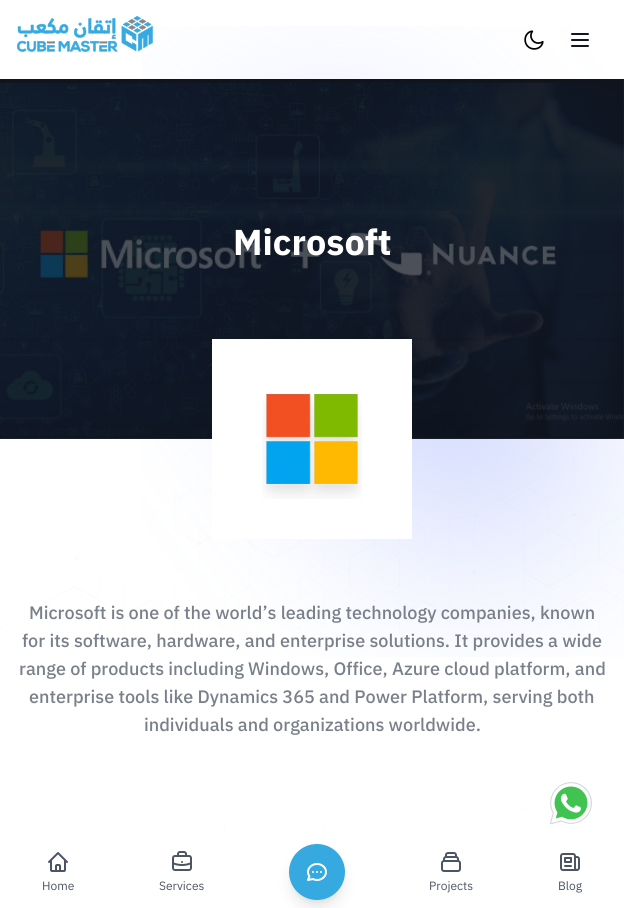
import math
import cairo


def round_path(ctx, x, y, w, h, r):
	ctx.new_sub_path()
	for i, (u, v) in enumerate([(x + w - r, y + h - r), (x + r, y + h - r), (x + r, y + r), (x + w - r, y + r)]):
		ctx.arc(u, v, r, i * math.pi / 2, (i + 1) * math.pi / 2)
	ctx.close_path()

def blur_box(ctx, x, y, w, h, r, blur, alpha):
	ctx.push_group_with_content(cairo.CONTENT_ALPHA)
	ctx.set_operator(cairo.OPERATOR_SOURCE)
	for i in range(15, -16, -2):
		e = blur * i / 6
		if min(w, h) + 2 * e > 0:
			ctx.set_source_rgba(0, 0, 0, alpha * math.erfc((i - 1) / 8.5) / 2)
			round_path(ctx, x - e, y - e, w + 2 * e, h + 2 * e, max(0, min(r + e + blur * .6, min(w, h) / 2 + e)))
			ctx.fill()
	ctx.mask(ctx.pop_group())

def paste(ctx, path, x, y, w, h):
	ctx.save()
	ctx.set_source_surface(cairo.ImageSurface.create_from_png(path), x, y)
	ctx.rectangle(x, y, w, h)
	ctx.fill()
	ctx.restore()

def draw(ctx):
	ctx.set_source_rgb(1, 1, 1)
	ctx.paint()
	paste(ctx, 'media/4.png', 0, 163, 624, 673)
	paste(ctx, 'media/3.png', 141, 26, 483, 631)
	paste(ctx, 'media/1.png', 17, 16, 136, 36)
	paste(ctx, 'media/2.png', 524, 30, 20, 20)
	ctx.new_path()
	ctx.move_to(572, 34)
	ctx.line_to(588, 34)
	ctx.move_to(572, 40)
	ctx.line_to(588, 40)
	ctx.move_to(572, 46)
	ctx.line_to(588, 46)
	ctx.set_source_rgb(0.067, 0.09, 0.133)
	ctx.set_line_cap(cairo.LINE_CAP_ROUND)
	ctx.set_line_join(cairo.LINE_JOIN_ROUND)
	ctx.stroke()
	paste(ctx, 'media/5.png', 0, 79, 624, 360)
	ctx.set_source_rgba(0.067, 0.09, 0.133, 0.75)
	ctx.rectangle(0, 79, 624, 360)
	ctx.fill()
	ctx.select_font_face('IBM Plex Sans Arabic', cairo.FONT_SLANT_NORMAL, cairo.FONT_WEIGHT_BOLD)
	ctx.set_font_size(36)
	ctx.set_source_rgb(1, 1, 1)
	ctx.move_to(233, 255)
	ctx.show_text('Microsoft')
	ctx.rectangle(212, 339, 200, 200)
	ctx.fill()
	paste(ctx, 'media/6.png', 262, 393, 100, 106)
	ctx.select_font_face('IBM Plex Sans Arabic Medium')
	ctx.set_font_size(18)
	ctx.set_source_rgb(0.475, 0.502, 0.541)
	for x, y, s in [
		(29, 619, 'Microsoft is one of the world’s leading technology companies, known'),
		(22, 647, 'for its software, hardware, and enterprise solutions. It provides a wide'),
		(19, 675, 'range of products including Windows, Office, Azure cloud platform, and'),
		(29, 703, 'enterprise tools like Dynamics 365 and Power Platform, serving both'),
		(144, 731, 'individuals and organizations worldwide.'),
	]:
		ctx.move_to(x, y)
		ctx.show_text(s)
	paste(ctx, 'media/7.png', 550, 782, 42, 43)
	paste(ctx, 'media/8.png', 48, 852, 20, 20)
	ctx.select_font_face('IBM Plex Sans Arabic')
	ctx.set_font_size(12)
	ctx.set_source_rgb(0.294, 0.333, 0.388)
	ctx.move_to(42, 890)
	ctx.show_text('Home')
	paste(ctx, 'media/9.png', 172, 851, 20, 20)
	ctx.move_to(159, 890)
	ctx.show_text('Services')
	ctx.set_source_rgb(0, 0, 0)
	blur_box(ctx, 293, 852, 48, 48, 24, 3, 0.1)
	blur_box(ctx, 292, 857, 50, 50, 25, 7.5, 0.1)
	ctx.set_source_rgb(0.212, 0.663, 0.882)
	ctx.arc(317, 872, 28, 0, 2 * math.pi)
	ctx.fill()
	paste(ctx, 'media/10.png', 307, 863, 20, 18)
	paste(ctx, 'media/11.png', 441, 852, 20, 20)
	ctx.set_source_rgb(0.294, 0.333, 0.388)
	ctx.move_to(429, 890)
	ctx.show_text('Projects')
	paste(ctx, 'media/12.png', 560, 853, 20, 18)
	ctx.move_to(558, 890)
	ctx.show_text('Blog')


surface = cairo.ImageSurface(cairo.FORMAT_RGB24, 624, 908)
ctx = cairo.Context(surface)
options = cairo.FontOptions()
options.set_hint_metrics(cairo.HINT_METRICS_OFF)
options.set_hint_style(cairo.HINT_STYLE_NONE)
ctx.set_font_options(options)
ctx.set_miter_limit(4)
draw(ctx)
surface.write_to_png('image.png')
